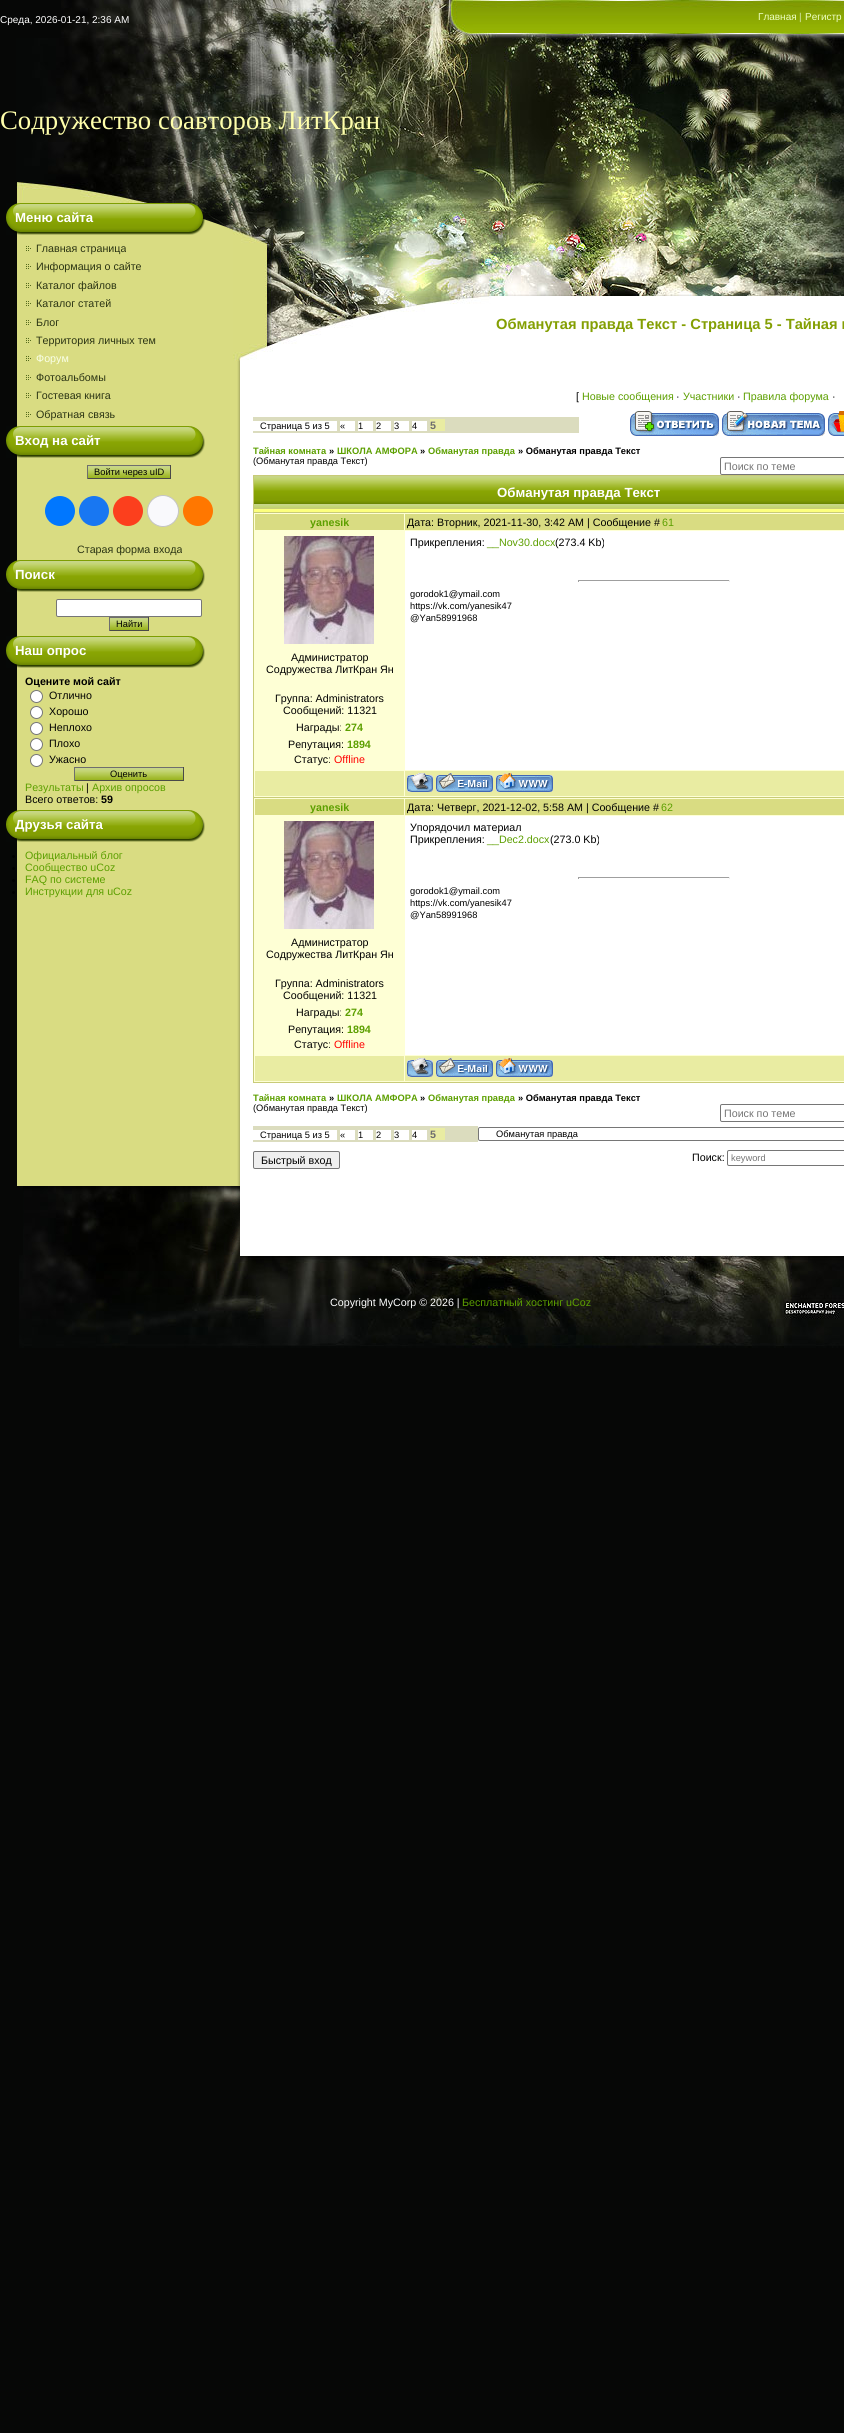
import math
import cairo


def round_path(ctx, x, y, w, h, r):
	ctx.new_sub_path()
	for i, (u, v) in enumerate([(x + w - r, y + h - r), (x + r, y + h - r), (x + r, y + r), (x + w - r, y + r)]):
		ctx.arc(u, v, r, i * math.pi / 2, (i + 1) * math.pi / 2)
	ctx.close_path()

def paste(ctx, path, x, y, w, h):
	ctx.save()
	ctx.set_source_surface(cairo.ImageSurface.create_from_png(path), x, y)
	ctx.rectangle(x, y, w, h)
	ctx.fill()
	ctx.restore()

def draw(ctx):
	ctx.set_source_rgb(0.024, 0.031, 0.027)
	ctx.paint()
	paste(ctx, 'media/1.png', 61, 0, 172, 38)
	ctx.select_font_face('Liberation Sans')
	ctx.set_font_size(10)
	ctx.set_source_rgb(1, 1, 1)
	ctx.move_to(0, 23)
	ctx.show_text('Среда, 2026-01-21, 2:36 AM')
	paste(ctx, 'media/2.png', 233, 0, 611, 38)
	ctx.set_source_rgb(0.933, 1, 0.765)
	ctx.move_to(758, 20)
	ctx.show_text('Главная')
	ctx.set_source_rgb(0.847, 0.906, 0.694)
	ctx.move_to(799, 20)
	ctx.show_text('|')
	ctx.set_source_rgb(0.933, 1, 0.765)
	ctx.move_to(805, 20)
	ctx.show_text('Регистр')
	paste(ctx, 'media/3.png', 16, 38, 828, 165)
	ctx.select_font_face('Liberation Serif')
	ctx.set_font_size(26.7)
	ctx.set_source_rgb(1, 1, 0.671)
	ctx.move_to(0, 129)
	ctx.show_text('Cодружество соавторов ЛитКран')
	ctx.set_source_rgb(0.851, 0.863, 0.51)
	ctx.rectangle(17, 235, 216, 951)
	ctx.fill()
	paste(ctx, 'media/4.png', 6, 203, 227, 32)
	ctx.select_font_face('Liberation Sans', cairo.FONT_SLANT_NORMAL, cairo.FONT_WEIGHT_BOLD)
	ctx.set_font_size(13.25)
	ctx.set_source_rgb(1, 1, 1)
	ctx.move_to(15, 222)
	ctx.show_text('Меню сайта')
	paste(ctx, 'media/5.png', 26, 246, 5, 5)
	ctx.select_font_face('Liberation Sans')
	ctx.set_font_size(10.7)
	ctx.set_source_rgb(0.169, 0.204, 0.078)
	ctx.move_to(36, 252)
	ctx.show_text('Главная страница')
	paste(ctx, 'media/5.png', 26, 264, 5, 5)
	ctx.move_to(36, 270)
	ctx.show_text('Информация о сайте')
	paste(ctx, 'media/5.png', 26, 283, 5, 5)
	ctx.move_to(36, 289)
	ctx.show_text('Каталог файлов')
	paste(ctx, 'media/5.png', 26, 301, 5, 5)
	ctx.move_to(36, 307)
	ctx.show_text('Каталог статей')
	paste(ctx, 'media/5.png', 26, 320, 5, 5)
	ctx.move_to(36, 326)
	ctx.show_text('Блог')
	paste(ctx, 'media/5.png', 26, 338, 5, 5)
	ctx.move_to(36, 344)
	ctx.show_text('Территория личных тем')
	paste(ctx, 'media/5.png', 26, 356, 5, 5)
	ctx.set_source_rgb(0.973, 1, 0.91)
	ctx.move_to(36, 362)
	ctx.show_text('Форум')
	paste(ctx, 'media/5.png', 26, 375, 5, 5)
	ctx.set_source_rgb(0.169, 0.204, 0.078)
	ctx.move_to(36, 381)
	ctx.show_text('Фотоальбомы')
	paste(ctx, 'media/5.png', 26, 393, 5, 5)
	ctx.move_to(36, 399)
	ctx.show_text('Гостевая книга')
	paste(ctx, 'media/5.png', 26, 412, 5, 5)
	ctx.move_to(36, 418)
	ctx.show_text('Обратная связь')
	paste(ctx, 'media/6.png', 6, 426, 199, 32)
	ctx.select_font_face('Liberation Sans', cairo.FONT_SLANT_NORMAL, cairo.FONT_WEIGHT_BOLD)
	ctx.set_font_size(13.25)
	ctx.set_source_rgb(1, 1, 1)
	ctx.move_to(15, 445)
	ctx.show_text('Вход на сайт')
	paste(ctx, 'media/7.png', 88, 466, 82, 12)
	ctx.set_source_rgb(0.431, 0.431, 0.431)
	ctx.rectangle(87, 465, 84, 1)
	ctx.fill()
	ctx.set_source_rgb(0.286, 0.286, 0.286)
	ctx.rectangle(170, 465, 1, 14)
	ctx.rectangle(87, 478, 84, 1)
	ctx.fill()
	ctx.set_source_rgb(0.431, 0.431, 0.431)
	ctx.rectangle(87, 465, 1, 14)
	ctx.fill()
	ctx.select_font_face('Liberation Sans')
	ctx.set_font_size(9.3)
	ctx.set_source_rgb(0, 0, 0)
	ctx.move_to(94, 475)
	ctx.show_text('Войти через uID')
	ctx.set_source_rgb(0, 0.467, 1)
	ctx.new_path()
	ctx.arc(60, 511, 15, 0, 2 * math.pi)
	ctx.fill()
	ctx.set_source_rgb(0.094, 0.467, 0.949)
	ctx.arc(94, 511, 15, 0, 2 * math.pi)
	ctx.fill()
	ctx.set_source_rgb(0.988, 0.247, 0.114)
	ctx.arc(128, 511, 15, 0, 2 * math.pi)
	ctx.fill()
	ctx.set_source_rgb(0.973, 0.973, 0.988)
	ctx.arc(163, 511, 15.5, 0, 2 * math.pi)
	ctx.fill_preserve()
	ctx.set_source_rgb(0.769, 0.769, 0.769)
	ctx.set_line_width(1)
	ctx.stroke()
	ctx.set_source_rgb(1, 0.467, 0)
	ctx.arc(198, 511, 15, 0, 2 * math.pi)
	ctx.fill()
	ctx.set_font_size(10.7)
	ctx.set_source_rgb(0.169, 0.204, 0.078)
	ctx.move_to(77, 553)
	ctx.show_text('Старая форма входа')
	paste(ctx, 'media/6.png', 6, 560, 199, 32)
	ctx.select_font_face('Liberation Sans', cairo.FONT_SLANT_NORMAL, cairo.FONT_WEIGHT_BOLD)
	ctx.set_font_size(13.25)
	ctx.set_source_rgb(1, 1, 1)
	ctx.move_to(15, 579)
	ctx.show_text('Поиск')
	round_path(ctx, 56.5, 599.5, 145, 17, 1.5)
	ctx.fill_preserve()
	ctx.set_source_rgb(0.463, 0.463, 0.463)
	ctx.stroke()
	paste(ctx, 'media/8.png', 110, 618, 38, 12)
	ctx.set_source_rgb(0.431, 0.431, 0.431)
	ctx.rectangle(109, 617, 40, 1)
	ctx.fill()
	ctx.set_source_rgb(0.286, 0.286, 0.286)
	ctx.rectangle(148, 617, 1, 14)
	ctx.rectangle(109, 630, 40, 1)
	ctx.fill()
	ctx.set_source_rgb(0.431, 0.431, 0.431)
	ctx.rectangle(109, 617, 1, 14)
	ctx.fill()
	ctx.select_font_face('Liberation Sans')
	ctx.set_font_size(9.3)
	ctx.set_source_rgb(0, 0, 0)
	ctx.move_to(116, 627)
	ctx.show_text('Найти')
	paste(ctx, 'media/6.png', 6, 636, 199, 32)
	ctx.select_font_face('Liberation Sans', cairo.FONT_SLANT_NORMAL, cairo.FONT_WEIGHT_BOLD)
	ctx.set_font_size(13.25)
	ctx.set_source_rgb(1, 1, 1)
	ctx.move_to(15, 655)
	ctx.show_text('Наш опрос')
	ctx.set_font_size(10.7)
	ctx.set_source_rgb(0, 0, 0)
	ctx.move_to(25, 685)
	ctx.show_text('Оцените мой сайт')
	ctx.set_source_rgb(1, 1, 1)
	ctx.new_path()
	ctx.arc(36.5, 696.5, 6, 0, 2 * math.pi)
	ctx.fill_preserve()
	ctx.set_source_rgb(0.463, 0.463, 0.463)
	ctx.stroke()
	ctx.select_font_face('Liberation Sans')
	ctx.set_source_rgb(0, 0, 0)
	ctx.move_to(49, 699)
	ctx.show_text('Отлично')
	ctx.set_source_rgb(1, 1, 1)
	ctx.new_path()
	ctx.arc(36.5, 712.5, 6, 0, 2 * math.pi)
	ctx.fill_preserve()
	ctx.set_source_rgb(0.463, 0.463, 0.463)
	ctx.stroke()
	ctx.set_source_rgb(0, 0, 0)
	ctx.move_to(49, 715)
	ctx.show_text('Хорошо')
	ctx.set_source_rgb(1, 1, 1)
	ctx.new_path()
	ctx.arc(36.5, 728.5, 6, 0, 2 * math.pi)
	ctx.fill_preserve()
	ctx.set_source_rgb(0.463, 0.463, 0.463)
	ctx.stroke()
	ctx.set_source_rgb(0, 0, 0)
	ctx.move_to(49, 731)
	ctx.show_text('Неплохо')
	ctx.set_source_rgb(1, 1, 1)
	ctx.new_path()
	ctx.arc(36.5, 744.5, 6, 0, 2 * math.pi)
	ctx.fill_preserve()
	ctx.set_source_rgb(0.463, 0.463, 0.463)
	ctx.stroke()
	ctx.set_source_rgb(0, 0, 0)
	ctx.move_to(49, 747)
	ctx.show_text('Плохо')
	ctx.set_source_rgb(1, 1, 1)
	ctx.new_path()
	ctx.arc(36.5, 760.5, 6, 0, 2 * math.pi)
	ctx.fill_preserve()
	ctx.set_source_rgb(0.463, 0.463, 0.463)
	ctx.stroke()
	ctx.set_source_rgb(0, 0, 0)
	ctx.move_to(49, 763)
	ctx.show_text('Ужасно')
	paste(ctx, 'media/9.png', 75, 768, 108, 12)
	ctx.set_source_rgb(0.431, 0.431, 0.431)
	ctx.rectangle(74, 767, 110, 1)
	ctx.fill()
	ctx.set_source_rgb(0.286, 0.286, 0.286)
	ctx.rectangle(183, 767, 1, 14)
	ctx.rectangle(74, 780, 110, 1)
	ctx.fill()
	ctx.set_source_rgb(0.431, 0.431, 0.431)
	ctx.rectangle(74, 767, 1, 14)
	ctx.fill()
	ctx.set_font_size(9.3)
	ctx.set_source_rgb(0, 0, 0)
	ctx.move_to(110, 777)
	ctx.show_text('Оценить')
	ctx.set_font_size(10.7)
	ctx.set_source_rgb(0.361, 0.624, 0)
	ctx.move_to(25, 791)
	ctx.show_text('Результаты')
	ctx.set_source_rgb(0, 0, 0)
	ctx.move_to(86, 791)
	ctx.show_text('|')
	ctx.set_source_rgb(0.361, 0.624, 0)
	ctx.move_to(92, 791)
	ctx.show_text('Архив опросов')
	ctx.set_source_rgb(0, 0, 0)
	ctx.move_to(25, 803)
	ctx.show_text('Всего ответов:')
	ctx.select_font_face('Liberation Sans', cairo.FONT_SLANT_NORMAL, cairo.FONT_WEIGHT_BOLD)
	ctx.move_to(101, 803)
	ctx.show_text('59')
	paste(ctx, 'media/6.png', 6, 810, 199, 32)
	ctx.set_font_size(13.25)
	ctx.set_source_rgb(1, 1, 1)
	ctx.move_to(15, 829)
	ctx.show_text('Друзья сайта')
	ctx.set_source_rgb(0, 0, 0)
	ctx.new_path()
	ctx.arc(13.5, 856.5, 1.5, 0, 2 * math.pi)
	ctx.fill()
	ctx.select_font_face('Liberation Sans')
	ctx.set_font_size(10.7)
	ctx.set_source_rgb(0.361, 0.624, 0)
	ctx.move_to(25, 859)
	ctx.show_text('Официальный блог')
	ctx.set_source_rgb(0, 0, 0)
	ctx.new_path()
	ctx.arc(13.5, 868.5, 1.5, 0, 2 * math.pi)
	ctx.fill()
	ctx.set_source_rgb(0.361, 0.624, 0)
	ctx.move_to(25, 871)
	ctx.show_text('Сообщество uCoz')
	ctx.set_source_rgb(0, 0, 0)
	ctx.new_path()
	ctx.arc(13.5, 880.5, 1.5, 0, 2 * math.pi)
	ctx.fill()
	ctx.set_source_rgb(0.361, 0.624, 0)
	ctx.move_to(25, 883)
	ctx.show_text('FAQ по системе')
	ctx.set_source_rgb(0, 0, 0)
	ctx.new_path()
	ctx.arc(13.5, 892.5, 1.5, 0, 2 * math.pi)
	ctx.fill()
	ctx.set_source_rgb(0.361, 0.624, 0)
	ctx.move_to(25, 895)
	ctx.show_text('Инструкции для uCoz')
	ctx.set_source_rgb(1, 1, 1)
	ctx.rectangle(240, 296, 604, 959)
	ctx.fill()
	paste(ctx, 'media/10.png', 233, 361, 7, 825)
	paste(ctx, 'media/11.png', 233, 203, 611, 93)
	paste(ctx, 'media/12.png', 233, 296, 258, 65)
	ctx.select_font_face('Liberation Sans', cairo.FONT_SLANT_NORMAL, cairo.FONT_WEIGHT_BOLD)
	ctx.set_font_size(14.7)
	ctx.set_source_rgb(0.518, 0.624, 0.012)
	ctx.move_to(496, 329)
	ctx.show_text('Обманутая правда Текст - Страница 5 - Тайная к')
	ctx.select_font_face('Liberation Sans')
	ctx.set_font_size(10.7)
	ctx.set_source_rgb(0, 0, 0)
	ctx.move_to(576, 400)
	ctx.show_text('[')
	ctx.set_source_rgb(0.361, 0.624, 0)
	ctx.move_to(582, 400)
	ctx.show_text('Новые сообщения')
	ctx.set_source_rgb(0, 0, 0)
	ctx.move_to(676, 400)
	ctx.show_text('·')
	ctx.set_source_rgb(0.361, 0.624, 0)
	ctx.move_to(683, 400)
	ctx.show_text('Участники')
	ctx.set_source_rgb(0, 0, 0)
	ctx.move_to(737, 400)
	ctx.show_text('·')
	ctx.set_source_rgb(0.361, 0.624, 0)
	ctx.move_to(743, 400)
	ctx.show_text('Правила форума')
	ctx.set_source_rgb(0, 0, 0)
	ctx.move_to(832, 400)
	ctx.show_text('·')
	ctx.set_source_rgb(0.859, 0.863, 0.745)
	ctx.rectangle(253, 417, 326, 16)
	ctx.fill()
	ctx.set_source_rgb(1, 1, 1)
	ctx.rectangle(253, 421, 84, 10)
	ctx.fill()
	ctx.set_font_size(9.3)
	ctx.set_source_rgb(0, 0, 0)
	ctx.move_to(260, 429)
	ctx.show_text('Страница 5 из 5')
	ctx.set_source_rgb(1, 1, 1)
	ctx.rectangle(340, 421, 15, 10)
	ctx.fill()
	ctx.set_source_rgb(0, 0, 0)
	ctx.move_to(340, 429)
	ctx.show_text('«')
	ctx.set_source_rgb(1, 1, 1)
	ctx.rectangle(358, 421, 15, 10)
	ctx.fill()
	ctx.set_source_rgb(0, 0, 0)
	ctx.move_to(358, 429)
	ctx.show_text('1')
	ctx.set_source_rgb(1, 1, 1)
	ctx.rectangle(376, 421, 15, 10)
	ctx.fill()
	ctx.set_source_rgb(0, 0, 0)
	ctx.move_to(376, 429)
	ctx.show_text('2')
	ctx.set_source_rgb(1, 1, 1)
	ctx.rectangle(394, 421, 15, 10)
	ctx.fill()
	ctx.set_source_rgb(0, 0, 0)
	ctx.move_to(394, 429)
	ctx.show_text('3')
	ctx.set_source_rgb(1, 1, 1)
	ctx.rectangle(412, 421, 15, 10)
	ctx.fill()
	ctx.set_source_rgb(0, 0, 0)
	ctx.move_to(412, 429)
	ctx.show_text('4')
	ctx.set_source_rgb(0.914, 0.922, 0.635)
	ctx.rectangle(430, 419, 15, 12)
	ctx.fill()
	ctx.select_font_face('Liberation Sans', cairo.FONT_SLANT_NORMAL, cairo.FONT_WEIGHT_BOLD)
	ctx.set_font_size(10.7)
	ctx.set_source_rgb(0.431, 0.431, 0.431)
	ctx.move_to(430, 429)
	ctx.show_text('5')
	paste(ctx, 'media/13.png', 630, 411, 89, 25)
	paste(ctx, 'media/14.png', 722, 411, 103, 25)
	paste(ctx, 'media/15.png', 828, 411, 16, 25)
	ctx.set_font_size(9.3)
	ctx.set_source_rgb(0.361, 0.624, 0)
	ctx.move_to(253, 454)
	ctx.show_text('Тайная комната')
	ctx.set_source_rgb(0, 0, 0)
	ctx.move_to(329, 454)
	ctx.show_text('»')
	ctx.set_source_rgb(0.361, 0.624, 0)
	ctx.move_to(337, 454)
	ctx.show_text('ШКОЛА АМФОРА')
	ctx.set_source_rgb(0, 0, 0)
	ctx.move_to(420, 454)
	ctx.show_text('»')
	ctx.set_source_rgb(0.361, 0.624, 0)
	ctx.move_to(428, 454)
	ctx.show_text('Обманутая правда')
	ctx.set_source_rgb(0, 0, 0)
	ctx.move_to(518, 454)
	ctx.show_text('» Обманутая правда Текст')
	ctx.select_font_face('Liberation Sans')
	ctx.move_to(253, 464)
	ctx.show_text('(Обманутая правда Текст)')
	round_path(ctx, 720.5, 457.5, 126, 17, 1.5)
	ctx.set_source_rgb(0.463, 0.463, 0.463)
	ctx.stroke()
	ctx.set_font_size(10.7)
	ctx.set_source_rgb(0.459, 0.459, 0.459)
	ctx.move_to(724, 470)
	ctx.show_text('Поиск по теме')
	ctx.set_source_rgb(0.784, 0.796, 0.471)
	ctx.rectangle(253, 475, 591, 608)
	ctx.fill()
	paste(ctx, 'media/16.png', 254, 476, 590, 32)
	ctx.select_font_face('Liberation Sans', cairo.FONT_SLANT_NORMAL, cairo.FONT_WEIGHT_BOLD)
	ctx.set_font_size(13.25)
	ctx.set_source_rgb(1, 1, 1)
	ctx.move_to(497, 497)
	ctx.show_text('Обманутая правда Текст')
	ctx.set_source_rgb(0.988, 1, 0.486)
	ctx.rectangle(254, 509, 590, 3)
	ctx.fill()
	ctx.set_source_rgb(0.996, 1, 0.835)
	ctx.rectangle(254, 513, 590, 284)
	ctx.fill()
	ctx.set_source_rgb(0.851, 0.863, 0.51)
	ctx.rectangle(255, 514, 149, 16)
	ctx.fill()
	ctx.set_font_size(10.7)
	ctx.set_source_rgb(0.361, 0.624, 0)
	ctx.move_to(310, 526)
	ctx.show_text('yanesik')
	ctx.set_source_rgb(0.851, 0.863, 0.51)
	ctx.rectangle(405, 514, 439, 16)
	ctx.fill()
	ctx.select_font_face('Liberation Sans')
	ctx.set_source_rgb(0, 0, 0)
	ctx.move_to(407, 526)
	ctx.show_text('Дата: Вторник, 2021-11-30, 3:42 AM | Сообщение #')
	ctx.set_source_rgb(0.361, 0.624, 0)
	ctx.move_to(662, 526)
	ctx.show_text('61')
	ctx.set_source_rgb(1, 1, 1)
	ctx.rectangle(405, 531, 439, 239)
	ctx.fill()
	ctx.set_source_rgb(0, 0, 0)
	ctx.move_to(410, 546)
	ctx.show_text('Прикрепления:')
	ctx.set_source_rgb(0.361, 0.624, 0)
	ctx.move_to(487, 546)
	ctx.show_text('__Nov30.docx')
	ctx.set_source_rgb(0, 0, 0)
	ctx.move_to(555, 546)
	ctx.show_text('(273.4 Kb)')
	ctx.set_source_rgb(0.624, 0.624, 0.624)
	ctx.rectangle(578, 580, 152, 1)
	ctx.fill()
	ctx.set_source_rgb(0.933, 0.933, 0.933)
	ctx.rectangle(729, 580, 1, 2)
	ctx.fill()
	ctx.set_source_rgb(0.624, 0.624, 0.624)
	ctx.rectangle(578, 580, 1, 2)
	ctx.fill()
	ctx.set_font_size(9.3)
	ctx.set_source_rgb(0, 0, 0)
	for x, y, s in [
		(410, 597, 'gorodok1@ymail.com'),
		(410, 609, 'https://vk.com/yanesik47'),
		(410, 621, '@Yan58991968'),
	]:
		ctx.move_to(x, y)
		ctx.show_text(s)
	paste(ctx, 'media/17.png', 284, 536, 90, 108)
	ctx.set_font_size(10.7)
	for x, y, s in [
		(291, 661, 'Администратор'),
		(266, 673, 'Содружества ЛитКран Ян'),
		(275, 702, 'Группа: Administrators'),
		(283, 714, 'Сообщений: 11321'),
		(296, 731, 'Награды:'),
	]:
		ctx.move_to(x, y)
		ctx.show_text(s)
	ctx.select_font_face('Liberation Sans', cairo.FONT_SLANT_NORMAL, cairo.FONT_WEIGHT_BOLD)
	ctx.set_source_rgb(0.361, 0.624, 0)
	ctx.move_to(345, 731)
	ctx.show_text('274')
	ctx.select_font_face('Liberation Sans')
	ctx.set_source_rgb(0, 0, 0)
	ctx.move_to(288, 748)
	ctx.show_text('Репутация:')
	ctx.select_font_face('Liberation Sans', cairo.FONT_SLANT_NORMAL, cairo.FONT_WEIGHT_BOLD)
	ctx.set_source_rgb(0.361, 0.624, 0)
	ctx.move_to(347, 748)
	ctx.show_text('1894')
	ctx.select_font_face('Liberation Sans')
	ctx.set_source_rgb(0, 0, 0)
	ctx.move_to(294, 763)
	ctx.show_text('Статус:')
	ctx.set_source_rgb(1, 0, 0)
	ctx.move_to(334, 763)
	ctx.show_text('Offline')
	ctx.set_source_rgb(0.914, 0.922, 0.635)
	ctx.rectangle(255, 771, 149, 25)
	ctx.fill()
	ctx.rectangle(405, 771, 439, 25)
	ctx.fill()
	paste(ctx, 'media/18.png', 407, 773, 26, 19)
	paste(ctx, 'media/19.png', 436, 773, 57, 19)
	paste(ctx, 'media/20.png', 496, 773, 57, 19)
	ctx.set_source_rgb(0.996, 1, 0.835)
	ctx.rectangle(254, 798, 590, 284)
	ctx.fill()
	ctx.set_source_rgb(0.851, 0.863, 0.51)
	ctx.rectangle(255, 799, 149, 16)
	ctx.fill()
	ctx.select_font_face('Liberation Sans', cairo.FONT_SLANT_NORMAL, cairo.FONT_WEIGHT_BOLD)
	ctx.set_source_rgb(0.361, 0.624, 0)
	ctx.move_to(310, 811)
	ctx.show_text('yanesik')
	ctx.set_source_rgb(0.851, 0.863, 0.51)
	ctx.rectangle(405, 799, 439, 16)
	ctx.fill()
	ctx.select_font_face('Liberation Sans')
	ctx.set_source_rgb(0, 0, 0)
	ctx.move_to(407, 811)
	ctx.show_text('Дата: Четверг, 2021-12-02, 5:58 AM | Сообщение #')
	ctx.set_source_rgb(0.361, 0.624, 0)
	ctx.move_to(661, 811)
	ctx.show_text('62')
	ctx.set_source_rgb(1, 1, 1)
	ctx.rectangle(405, 816, 439, 239)
	ctx.fill()
	ctx.set_source_rgb(0, 0, 0)
	ctx.move_to(410, 831)
	ctx.show_text('Упорядочил материал')
	ctx.move_to(410, 843)
	ctx.show_text('Прикрепления:')
	ctx.set_source_rgb(0.361, 0.624, 0)
	ctx.move_to(487, 843)
	ctx.show_text('__Dec2.docx')
	ctx.set_source_rgb(0, 0, 0)
	ctx.move_to(550, 843)
	ctx.show_text('(273.0 Kb)')
	ctx.set_source_rgb(0.624, 0.624, 0.624)
	ctx.rectangle(578, 877, 152, 1)
	ctx.fill()
	ctx.set_source_rgb(0.933, 0.933, 0.933)
	ctx.rectangle(729, 877, 1, 2)
	ctx.fill()
	ctx.set_source_rgb(0.624, 0.624, 0.624)
	ctx.rectangle(578, 877, 1, 2)
	ctx.fill()
	ctx.set_font_size(9.3)
	ctx.set_source_rgb(0, 0, 0)
	for x, y, s in [
		(410, 894, 'gorodok1@ymail.com'),
		(410, 906, 'https://vk.com/yanesik47'),
		(410, 918, '@Yan58991968'),
	]:
		ctx.move_to(x, y)
		ctx.show_text(s)
	paste(ctx, 'media/17.png', 284, 821, 90, 108)
	ctx.set_font_size(10.7)
	for x, y, s in [
		(291, 946, 'Администратор'),
		(266, 958, 'Содружества ЛитКран Ян'),
		(275, 987, 'Группа: Administrators'),
		(283, 999, 'Сообщений: 11321'),
		(296, 1016, 'Награды:'),
	]:
		ctx.move_to(x, y)
		ctx.show_text(s)
	ctx.select_font_face('Liberation Sans', cairo.FONT_SLANT_NORMAL, cairo.FONT_WEIGHT_BOLD)
	ctx.set_source_rgb(0.361, 0.624, 0)
	ctx.move_to(345, 1016)
	ctx.show_text('274')
	ctx.select_font_face('Liberation Sans')
	ctx.set_source_rgb(0, 0, 0)
	ctx.move_to(288, 1033)
	ctx.show_text('Репутация:')
	ctx.select_font_face('Liberation Sans', cairo.FONT_SLANT_NORMAL, cairo.FONT_WEIGHT_BOLD)
	ctx.set_source_rgb(0.361, 0.624, 0)
	ctx.move_to(347, 1033)
	ctx.show_text('1894')
	ctx.select_font_face('Liberation Sans')
	ctx.set_source_rgb(0, 0, 0)
	ctx.move_to(294, 1048)
	ctx.show_text('Статус:')
	ctx.set_source_rgb(1, 0, 0)
	ctx.move_to(334, 1048)
	ctx.show_text('Offline')
	ctx.set_source_rgb(0.914, 0.922, 0.635)
	ctx.rectangle(255, 1056, 149, 25)
	ctx.fill()
	ctx.rectangle(405, 1056, 439, 25)
	ctx.fill()
	paste(ctx, 'media/18.png', 407, 1058, 26, 19)
	paste(ctx, 'media/19.png', 436, 1058, 57, 19)
	paste(ctx, 'media/20.png', 496, 1058, 57, 19)
	ctx.select_font_face('Liberation Sans', cairo.FONT_SLANT_NORMAL, cairo.FONT_WEIGHT_BOLD)
	ctx.set_font_size(9.3)
	ctx.set_source_rgb(0.361, 0.624, 0)
	ctx.move_to(253, 1101)
	ctx.show_text('Тайная комната')
	ctx.set_source_rgb(0, 0, 0)
	ctx.move_to(329, 1101)
	ctx.show_text('»')
	ctx.set_source_rgb(0.361, 0.624, 0)
	ctx.move_to(337, 1101)
	ctx.show_text('ШКОЛА АМФОРА')
	ctx.set_source_rgb(0, 0, 0)
	ctx.move_to(420, 1101)
	ctx.show_text('»')
	ctx.set_source_rgb(0.361, 0.624, 0)
	ctx.move_to(428, 1101)
	ctx.show_text('Обманутая правда')
	ctx.set_source_rgb(0, 0, 0)
	ctx.move_to(518, 1101)
	ctx.show_text('» Обманутая правда Текст')
	ctx.select_font_face('Liberation Sans')
	ctx.move_to(253, 1111)
	ctx.show_text('(Обманутая правда Текст)')
	round_path(ctx, 720.5, 1104.5, 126, 17, 1.5)
	ctx.set_source_rgb(0.463, 0.463, 0.463)
	ctx.stroke()
	ctx.set_font_size(10.7)
	ctx.set_source_rgb(0.459, 0.459, 0.459)
	ctx.move_to(724, 1117)
	ctx.show_text('Поиск по теме')
	ctx.set_source_rgb(0.859, 0.863, 0.745)
	ctx.rectangle(253, 1126, 225, 16)
	ctx.fill()
	ctx.set_source_rgb(1, 1, 1)
	ctx.rectangle(253, 1130, 84, 10)
	ctx.fill()
	ctx.set_font_size(9.3)
	ctx.set_source_rgb(0, 0, 0)
	ctx.move_to(260, 1138)
	ctx.show_text('Страница 5 из 5')
	ctx.set_source_rgb(1, 1, 1)
	ctx.rectangle(340, 1130, 15, 10)
	ctx.fill()
	ctx.set_source_rgb(0, 0, 0)
	ctx.move_to(340, 1138)
	ctx.show_text('«')
	ctx.set_source_rgb(1, 1, 1)
	ctx.rectangle(358, 1130, 15, 10)
	ctx.fill()
	ctx.set_source_rgb(0, 0, 0)
	ctx.move_to(358, 1138)
	ctx.show_text('1')
	ctx.set_source_rgb(1, 1, 1)
	ctx.rectangle(376, 1130, 15, 10)
	ctx.fill()
	ctx.set_source_rgb(0, 0, 0)
	ctx.move_to(376, 1138)
	ctx.show_text('2')
	ctx.set_source_rgb(1, 1, 1)
	ctx.rectangle(394, 1130, 15, 10)
	ctx.fill()
	ctx.set_source_rgb(0, 0, 0)
	ctx.move_to(394, 1138)
	ctx.show_text('3')
	ctx.set_source_rgb(1, 1, 1)
	ctx.rectangle(412, 1130, 15, 10)
	ctx.fill()
	ctx.set_source_rgb(0, 0, 0)
	ctx.move_to(412, 1138)
	ctx.show_text('4')
	ctx.set_source_rgb(0.914, 0.922, 0.635)
	ctx.rectangle(430, 1128, 15, 12)
	ctx.fill()
	ctx.select_font_face('Liberation Sans', cairo.FONT_SLANT_NORMAL, cairo.FONT_WEIGHT_BOLD)
	ctx.set_font_size(10.7)
	ctx.set_source_rgb(0.431, 0.431, 0.431)
	ctx.move_to(430, 1138)
	ctx.show_text('5')
	round_path(ctx, 478.5, 1127.5, 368, 13, 1.5)
	ctx.set_source_rgb(0.463, 0.463, 0.463)
	ctx.stroke()
	ctx.select_font_face('Liberation Sans')
	ctx.set_font_size(9.3)
	ctx.set_source_rgb(0, 0, 0)
	ctx.move_to(496, 1137)
	ctx.show_text('Обманутая правда')
	ctx.set_source_rgb(0.937, 0.937, 0.937)
	round_path(ctx, 253.5, 1151.5, 86, 17, 1.5)
	ctx.fill_preserve()
	ctx.set_source_rgb(0.463, 0.463, 0.463)
	ctx.stroke()
	ctx.set_font_size(10.7)
	ctx.set_source_rgb(0, 0, 0)
	ctx.move_to(261, 1164)
	ctx.show_text('Быстрый вход')
	ctx.move_to(692, 1161)
	ctx.show_text('Поиск:')
	round_path(ctx, 727.5, 1150.5, 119, 15, 1.5)
	ctx.set_source_rgb(0.463, 0.463, 0.463)
	ctx.stroke()
	ctx.set_font_size(9.3)
	ctx.set_source_rgb(0.459, 0.459, 0.459)
	ctx.move_to(731, 1161)
	ctx.show_text('keyword')
	paste(ctx, 'media/21.png', 23, 1186, 210, 69)
	paste(ctx, 'media/22.png', 233, 1186, 7, 69)
	paste(ctx, 'media/23.png', 19, 1255, 825, 93)
	ctx.set_font_size(10.7)
	ctx.set_source_rgb(1, 1, 1)
	ctx.move_to(330, 1306)
	ctx.show_text('Copyright MyCorp © 2026 |')
	ctx.set_source_rgb(0.361, 0.624, 0)
	ctx.move_to(462, 1306)
	ctx.show_text('Бесплатный хостинг uCoz')


surface = cairo.ImageSurface(cairo.FORMAT_RGB24, 844, 2433)
ctx = cairo.Context(surface)
options = cairo.FontOptions()
options.set_hint_metrics(cairo.HINT_METRICS_OFF)
options.set_hint_style(cairo.HINT_STYLE_NONE)
ctx.set_font_options(options)
ctx.set_miter_limit(4)
draw(ctx)
surface.write_to_png('image.png')
